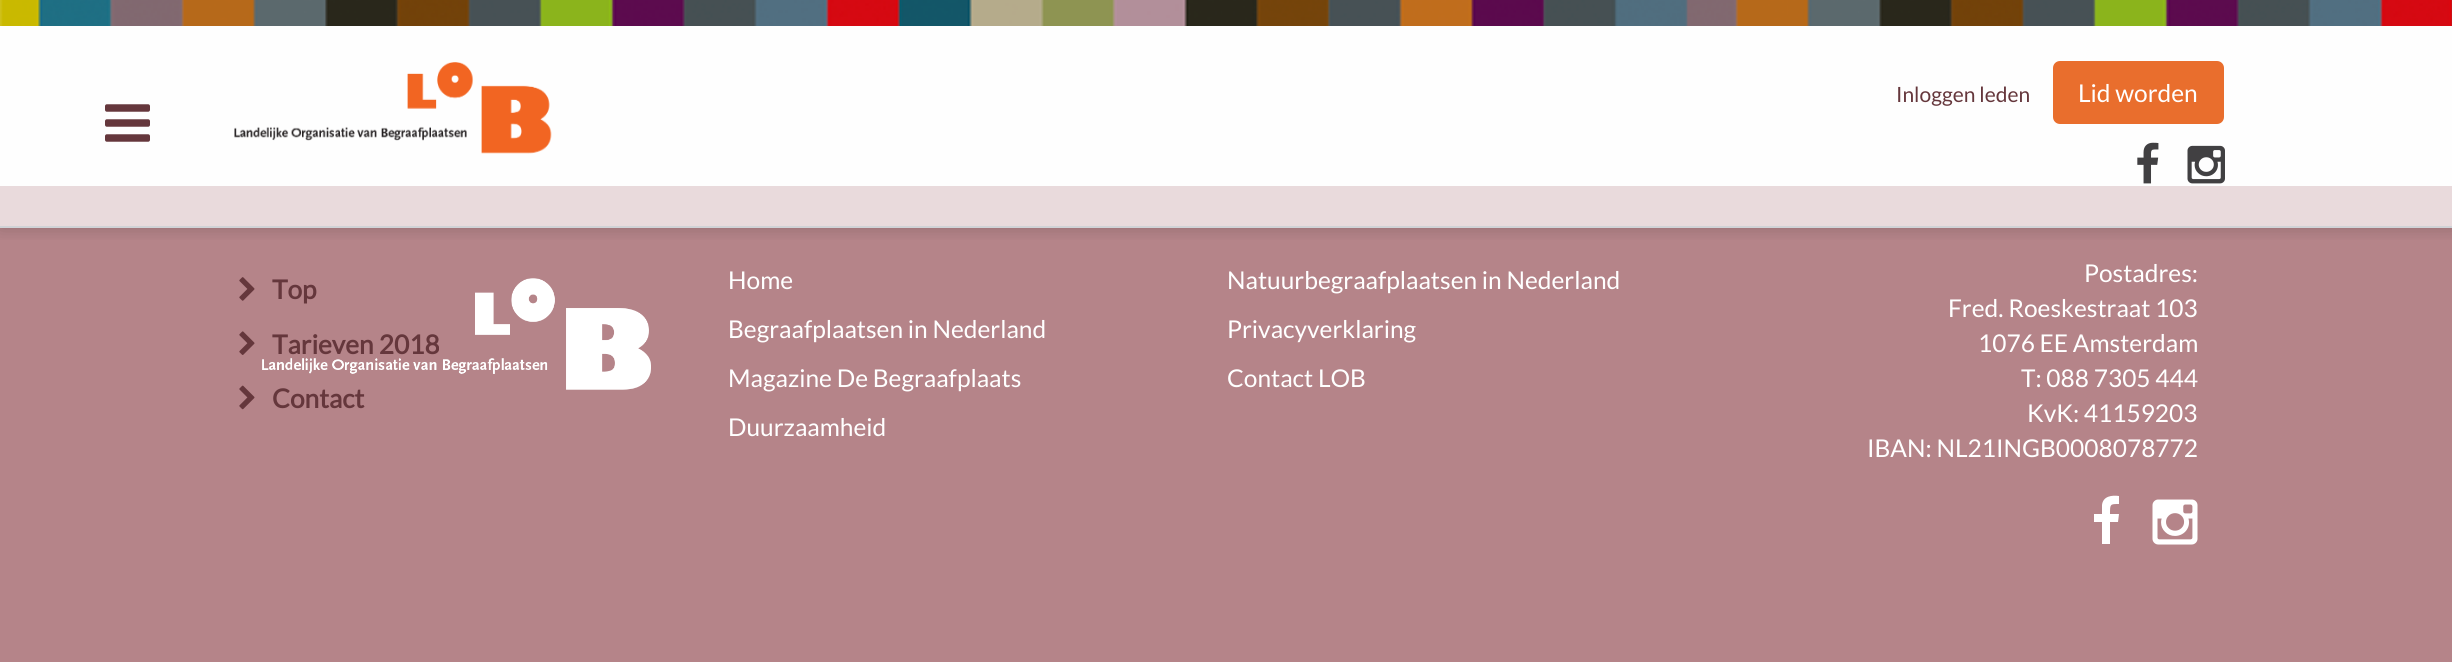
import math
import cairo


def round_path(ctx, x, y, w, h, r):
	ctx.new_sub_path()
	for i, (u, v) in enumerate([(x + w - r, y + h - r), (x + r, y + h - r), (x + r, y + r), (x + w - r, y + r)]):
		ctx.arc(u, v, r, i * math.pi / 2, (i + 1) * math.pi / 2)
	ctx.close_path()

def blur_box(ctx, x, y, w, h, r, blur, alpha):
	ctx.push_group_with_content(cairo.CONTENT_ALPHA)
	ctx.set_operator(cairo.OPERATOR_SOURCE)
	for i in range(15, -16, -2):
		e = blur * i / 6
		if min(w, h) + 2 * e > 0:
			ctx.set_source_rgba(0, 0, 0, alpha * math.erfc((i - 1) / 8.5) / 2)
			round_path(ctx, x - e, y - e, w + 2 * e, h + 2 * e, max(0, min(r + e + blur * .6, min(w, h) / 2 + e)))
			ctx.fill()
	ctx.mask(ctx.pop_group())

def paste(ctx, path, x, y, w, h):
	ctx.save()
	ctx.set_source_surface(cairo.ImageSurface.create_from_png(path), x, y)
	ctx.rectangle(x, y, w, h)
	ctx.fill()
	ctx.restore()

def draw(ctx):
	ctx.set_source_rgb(0.71, 0.518, 0.537)
	ctx.paint()
	ctx.set_source_rgb(0.984, 0.984, 0.984)
	ctx.rectangle(0, 0, 2452, 186)
	ctx.fill()
	ctx.save()
	ctx.rectangle(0, 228, 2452, 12)
	ctx.clip()
	ctx.set_source_rgb(0, 0, 0)
	blur_box(ctx, 0, 0, 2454, 228, 0, 9, 0.2)
	ctx.restore()
	ctx.set_source_rgba(1, 1, 1, 0.7)
	ctx.rectangle(0, 0, 2452, 226)
	ctx.fill()
	ctx.set_source_rgb(0.816, 0.824, 0.839)
	ctx.rectangle(0, 226, 2452, 2)
	ctx.fill()
	paste(ctx, 'media/1.png', 0, 0, 2452, 26)
	paste(ctx, 'media/2.png', 234, 62, 318, 92)
	ctx.select_font_face('Lato')
	ctx.set_font_size(21)
	ctx.set_source_rgb(0.396, 0.216, 0.235)
	ctx.move_to(1896, 102)
	ctx.show_text('Inloggen leden')
	ctx.set_source_rgb(0.914, 0.431, 0.176)
	round_path(ctx, 2053, 61, 171, 63, 7)
	ctx.fill()
	ctx.set_font_size(24.5)
	ctx.set_source_rgb(1, 1, 1)
	ctx.move_to(2078, 102)
	ctx.show_text('Lid worden')
	paste(ctx, 'media/3.png', 2137, 142, 22, 42)
	paste(ctx, 'media/4.png', 2187, 145, 38, 39)
	paste(ctx, 'media/5.png', 105, 104, 45, 38)
	paste(ctx, 'media/6.png', 239, 277, 16, 24)
	ctx.select_font_face('Lato', cairo.FONT_SLANT_NORMAL, cairo.FONT_WEIGHT_BOLD)
	ctx.set_font_size(26.25)
	ctx.set_source_rgb(0.396, 0.216, 0.235)
	ctx.move_to(272, 299)
	ctx.show_text('Top')
	paste(ctx, 'media/7.png', 239, 331, 16, 24)
	ctx.move_to(272, 354)
	ctx.show_text('Tarieven 2018')
	paste(ctx, 'media/8.png', 239, 385, 16, 25)
	ctx.move_to(272, 408)
	ctx.show_text('Contact')
	paste(ctx, 'media/9.png', 262, 278, 389, 112)
	ctx.select_font_face('Lato')
	ctx.set_font_size(24.5)
	ctx.set_source_rgb(1, 1, 1)
	for x, y, s in [
		(728, 289, 'Home'),
		(728, 338, 'Begraafplaatsen in Nederland'),
		(728, 387, 'Magazine De Begraafplaats'),
		(728, 436, 'Duurzaamheid'),
		(1227, 289, 'Natuurbegraafplaatsen in Nederland'),
		(1227, 338, 'Privacyverklaring'),
		(1227, 387, 'Contact LOB'),
		(2084, 282, 'Postadres:'),
		(1948, 317, 'Fred. Roeskestraat 103'),
		(1978, 352, '1076 EE Amsterdam'),
		(2021, 387, 'T: 088 7305 444'),
		(2027, 422, 'KvK: 41159203'),
		(1867, 457, 'IBAN: NL21INGB0008078772'),
	]:
		ctx.move_to(x, y)
		ctx.show_text(s)
	ctx.new_path()
	ctx.move_to(2119, 496)
	ctx.line_to(2119, 504)
	ctx.curve_to(2110, 504, 2110, 504, 2110, 514)
	ctx.line_to(2119, 514)
	ctx.line_to(2118, 522)
	ctx.line_to(2110, 522)
	ctx.line_to(2110, 544)
	ctx.line_to(2102, 544)
	ctx.line_to(2102, 522)
	ctx.line_to(2094, 522)
	ctx.line_to(2094, 514)
	ctx.line_to(2102, 514)
	ctx.line_to(2102, 505)
	ctx.curve_to(2103, 496, 2112, 495, 2119, 496)
	ctx.close_path()
	ctx.fill()
	paste(ctx, 'media/10.png', 2152, 499, 46, 46)


surface = cairo.ImageSurface(cairo.FORMAT_RGB24, 2452, 662)
ctx = cairo.Context(surface)
options = cairo.FontOptions()
options.set_hint_metrics(cairo.HINT_METRICS_OFF)
options.set_hint_style(cairo.HINT_STYLE_NONE)
ctx.set_font_options(options)
ctx.set_miter_limit(4)
draw(ctx)
surface.write_to_png('image.png')
